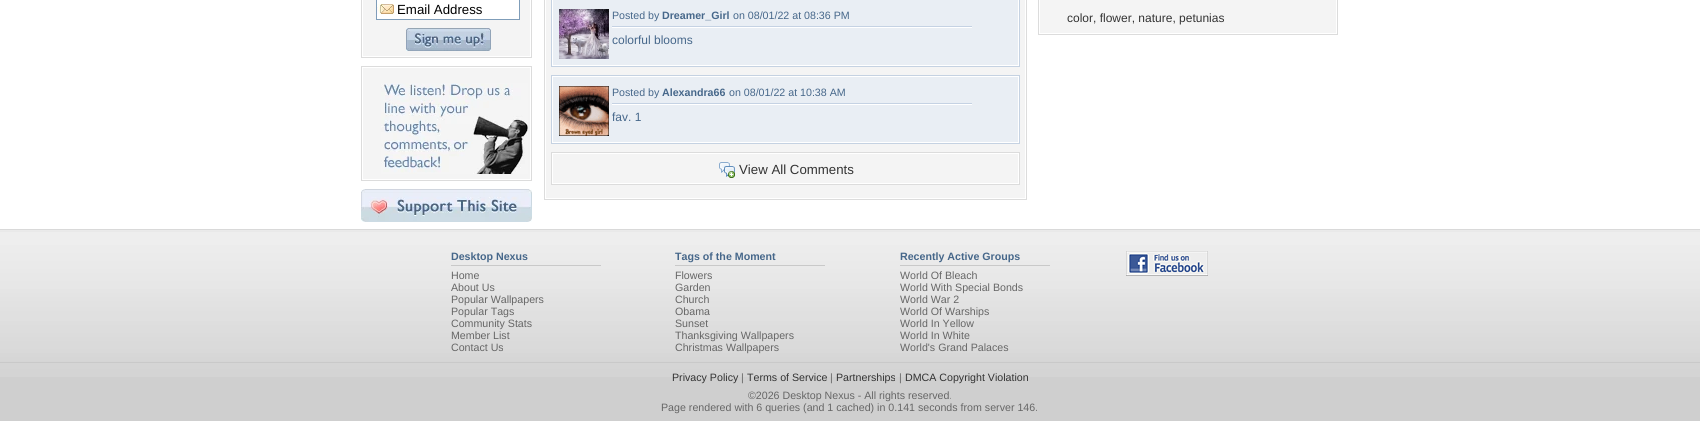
import math
import cairo


def paste(ctx, path, x, y, w, h):
	ctx.save()
	ctx.set_source_surface(cairo.ImageSurface.create_from_png(path), x, y)
	ctx.rectangle(x, y, w, h)
	ctx.fill()
	ctx.restore()

def draw(ctx):
	ctx.set_source_rgb(1, 1, 1)
	ctx.paint()
	ctx.rectangle(361.5, -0.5, 170, 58)
	ctx.set_source_rgb(0.863, 0.863, 0.863)
	ctx.set_line_width(1)
	ctx.stroke()
	ctx.set_source_rgb(0.957, 0.957, 0.957)
	ctx.rectangle(363, 0, 167, 56)
	ctx.fill()
	ctx.set_source_rgb(1, 1, 1)
	ctx.rectangle(377, 0, 142, 19)
	ctx.fill()
	paste(ctx, 'media/1.png', 377, 4, 17, 10)
	ctx.rectangle(376.5, -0.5, 143, 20)
	ctx.set_source_rgb(0.498, 0.616, 0.725)
	ctx.stroke()
	ctx.select_font_face('Liberation Sans')
	ctx.set_font_size(13.25)
	ctx.set_source_rgb(0, 0, 0)
	ctx.move_to(397, 14)
	ctx.show_text('Email Address')
	paste(ctx, 'media/2.png', 406, 28, 85, 23)
	ctx.rectangle(361.5, 66.5, 170, 114)
	ctx.set_source_rgb(0.863, 0.863, 0.863)
	ctx.stroke()
	ctx.set_source_rgb(0.957, 0.957, 0.957)
	ctx.rectangle(363, 68, 167, 111)
	ctx.fill()
	paste(ctx, 'media/3.png', 381, 83, 147, 91)
	paste(ctx, 'media/4.png', 361, 189, 171, 33)
	ctx.rectangle(544.5, -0.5, 482, 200)
	ctx.set_source_rgb(0.863, 0.863, 0.863)
	ctx.stroke()
	ctx.set_source_rgb(0.957, 0.957, 0.957)
	ctx.rectangle(546, 0, 479, 198)
	ctx.fill()
	ctx.set_source_rgb(1, 1, 1)
	ctx.rectangle(551.5, -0.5, 468, 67)
	ctx.fill_preserve()
	ctx.set_source_rgb(0.773, 0.824, 0.886)
	ctx.stroke()
	ctx.set_source_rgb(0.914, 0.933, 0.957)
	ctx.rectangle(553, 0, 465, 65)
	ctx.fill()
	paste(ctx, 'media/5.png', 559, 9, 50, 50)
	ctx.set_font_size(10.65)
	ctx.set_source_rgb(0.275, 0.404, 0.541)
	ctx.move_to(612, 19)
	ctx.show_text('Posted by')
	ctx.select_font_face('Liberation Sans', cairo.FONT_SLANT_NORMAL, cairo.FONT_WEIGHT_BOLD)
	ctx.move_to(662, 19)
	ctx.show_text('Dreamer_Girl')
	ctx.select_font_face('Liberation Sans')
	ctx.move_to(733, 19)
	ctx.show_text('on 08/01/22 at 08:36 PM')
	ctx.set_source_rgb(0.773, 0.824, 0.89)
	ctx.rectangle(612, 26, 360, 1)
	ctx.fill()
	ctx.set_source_rgb(1, 1, 1)
	ctx.rectangle(612, 27, 360, 1)
	ctx.fill()
	ctx.set_font_size(12)
	ctx.set_source_rgb(0.275, 0.404, 0.541)
	ctx.move_to(612, 44)
	ctx.show_text('colorful blooms')
	ctx.set_source_rgb(1, 1, 1)
	ctx.rectangle(551.5, 75.5, 468, 68)
	ctx.fill_preserve()
	ctx.set_source_rgb(0.773, 0.824, 0.886)
	ctx.stroke()
	ctx.set_source_rgb(0.914, 0.933, 0.957)
	ctx.rectangle(553, 77, 465, 65)
	ctx.fill()
	paste(ctx, 'media/6.png', 559, 86, 50, 50)
	ctx.set_font_size(10.65)
	ctx.set_source_rgb(0.275, 0.404, 0.541)
	ctx.move_to(612, 96)
	ctx.show_text('Posted by')
	ctx.select_font_face('Liberation Sans', cairo.FONT_SLANT_NORMAL, cairo.FONT_WEIGHT_BOLD)
	ctx.move_to(662, 96)
	ctx.show_text('Alexandra66')
	ctx.select_font_face('Liberation Sans')
	ctx.move_to(729, 96)
	ctx.show_text('on 08/01/22 at 10:38 AM')
	ctx.set_source_rgb(0.773, 0.824, 0.89)
	ctx.rectangle(612, 103, 360, 1)
	ctx.fill()
	ctx.set_source_rgb(1, 1, 1)
	ctx.rectangle(612, 104, 360, 1)
	ctx.fill()
	ctx.set_font_size(12)
	ctx.set_source_rgb(0.275, 0.404, 0.541)
	ctx.move_to(612, 121)
	ctx.show_text('fav. 1')
	ctx.set_source_rgb(1, 1, 1)
	ctx.rectangle(551.5, 152.5, 468, 32)
	ctx.fill_preserve()
	ctx.set_source_rgb(0.863, 0.863, 0.863)
	ctx.stroke()
	ctx.set_source_rgb(0.957, 0.957, 0.957)
	ctx.rectangle(553, 154, 465, 29)
	ctx.fill()
	paste(ctx, 'media/7.png', 719, 162, 16, 16)
	ctx.set_font_size(13.25)
	ctx.set_source_rgb(0.2, 0.2, 0.2)
	ctx.move_to(739, 174)
	ctx.show_text('View All Comments')
	ctx.rectangle(1038.5, -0.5, 299, 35)
	ctx.set_source_rgb(0.863, 0.863, 0.863)
	ctx.stroke()
	ctx.set_source_rgb(0.957, 0.957, 0.957)
	ctx.rectangle(1040, 0, 296, 33)
	ctx.fill()
	ctx.set_font_size(12)
	ctx.set_source_rgb(0.2, 0.2, 0.2)
	ctx.move_to(1067, 22)
	ctx.show_text('color, flower, nature, petunias')
	ctx.set_source_rgb(0.812, 0.812, 0.812)
	ctx.rectangle(0, 377, 1700, 44)
	ctx.fill()
	paste(ctx, 'media/8.png', 0, 229, 1700, 148)
	ctx.select_font_face('Liberation Sans', cairo.FONT_SLANT_NORMAL, cairo.FONT_WEIGHT_BOLD)
	ctx.set_font_size(10.65)
	ctx.set_source_rgb(0.275, 0.404, 0.541)
	ctx.move_to(451, 260)
	ctx.show_text('Desktop Nexus')
	ctx.set_source_rgb(0.788, 0.788, 0.788)
	ctx.rectangle(451, 265, 150, 1)
	ctx.fill()
	ctx.select_font_face('Liberation Sans')
	ctx.set_source_rgb(0.4, 0.4, 0.4)
	for x, y, s in [
		(451, 279, 'Home'),
		(451, 291, 'About Us'),
		(451, 303, 'Popular Wallpapers'),
		(451, 315, 'Popular Tags'),
		(451, 327, 'Community Stats'),
		(451, 339, 'Member List'),
		(451, 351, 'Contact Us'),
	]:
		ctx.move_to(x, y)
		ctx.show_text(s)
	ctx.select_font_face('Liberation Sans', cairo.FONT_SLANT_NORMAL, cairo.FONT_WEIGHT_BOLD)
	ctx.set_source_rgb(0.275, 0.404, 0.541)
	ctx.move_to(675, 260)
	ctx.show_text('Tags of the Moment')
	ctx.set_source_rgb(0.788, 0.788, 0.788)
	ctx.rectangle(675, 265, 150, 1)
	ctx.fill()
	ctx.select_font_face('Liberation Sans')
	ctx.set_source_rgb(0.4, 0.4, 0.4)
	for x, y, s in [
		(675, 279, 'Flowers'),
		(675, 291, 'Garden'),
		(675, 303, 'Church'),
		(675, 315, 'Obama'),
		(675, 327, 'Sunset'),
		(675, 339, 'Thanksgiving Wallpapers'),
		(675, 351, 'Christmas Wallpapers'),
	]:
		ctx.move_to(x, y)
		ctx.show_text(s)
	ctx.select_font_face('Liberation Sans', cairo.FONT_SLANT_NORMAL, cairo.FONT_WEIGHT_BOLD)
	ctx.set_source_rgb(0.275, 0.404, 0.541)
	ctx.move_to(900, 260)
	ctx.show_text('Recently Active Groups')
	ctx.set_source_rgb(0.788, 0.788, 0.788)
	ctx.rectangle(900, 265, 150, 1)
	ctx.fill()
	ctx.select_font_face('Liberation Sans')
	ctx.set_source_rgb(0.4, 0.4, 0.4)
	for x, y, s in [
		(900, 279, 'World Of Bleach'),
		(900, 291, 'World With Special Bonds'),
		(900, 303, 'World War 2'),
		(900, 315, 'World Of Warships'),
		(900, 327, 'World In Yellow'),
		(900, 339, 'World In White'),
		(900, 351, 'World\'s Grand Palaces'),
	]:
		ctx.move_to(x, y)
		ctx.show_text(s)
	paste(ctx, 'media/9.png', 1126, 251, 82, 25)
	ctx.set_source_rgb(0.788, 0.788, 0.788)
	ctx.rectangle(0, 362, 1700, 1)
	ctx.fill()
	ctx.set_source_rgb(0.2, 0.2, 0.2)
	ctx.move_to(672, 381)
	ctx.show_text('Privacy Policy')
	ctx.set_source_rgb(0.4, 0.4, 0.4)
	ctx.move_to(741, 381)
	ctx.show_text('|')
	ctx.set_source_rgb(0.2, 0.2, 0.2)
	ctx.move_to(747, 381)
	ctx.show_text('Terms of Service')
	ctx.set_source_rgb(0.4, 0.4, 0.4)
	ctx.move_to(830, 381)
	ctx.show_text('|')
	ctx.set_source_rgb(0.2, 0.2, 0.2)
	ctx.move_to(836, 381)
	ctx.show_text('Partnerships')
	ctx.set_source_rgb(0.4, 0.4, 0.4)
	ctx.move_to(899, 381)
	ctx.show_text('|')
	ctx.set_source_rgb(0.2, 0.2, 0.2)
	ctx.move_to(905, 381)
	ctx.show_text('DMCA Copyright Violation')
	ctx.set_source_rgb(0.4, 0.4, 0.4)
	ctx.move_to(748, 399)
	ctx.show_text('©2026 Desktop Nexus - All rights reserved.')
	ctx.move_to(661, 411)
	ctx.show_text('Page rendered with 6 queries (and 1 cached) in 0.141 seconds from server 146.')


surface = cairo.ImageSurface(cairo.FORMAT_RGB24, 1700, 421)
ctx = cairo.Context(surface)
options = cairo.FontOptions()
options.set_hint_metrics(cairo.HINT_METRICS_OFF)
options.set_hint_style(cairo.HINT_STYLE_NONE)
ctx.set_font_options(options)
ctx.set_miter_limit(4)
draw(ctx)
surface.write_to_png('image.png')
